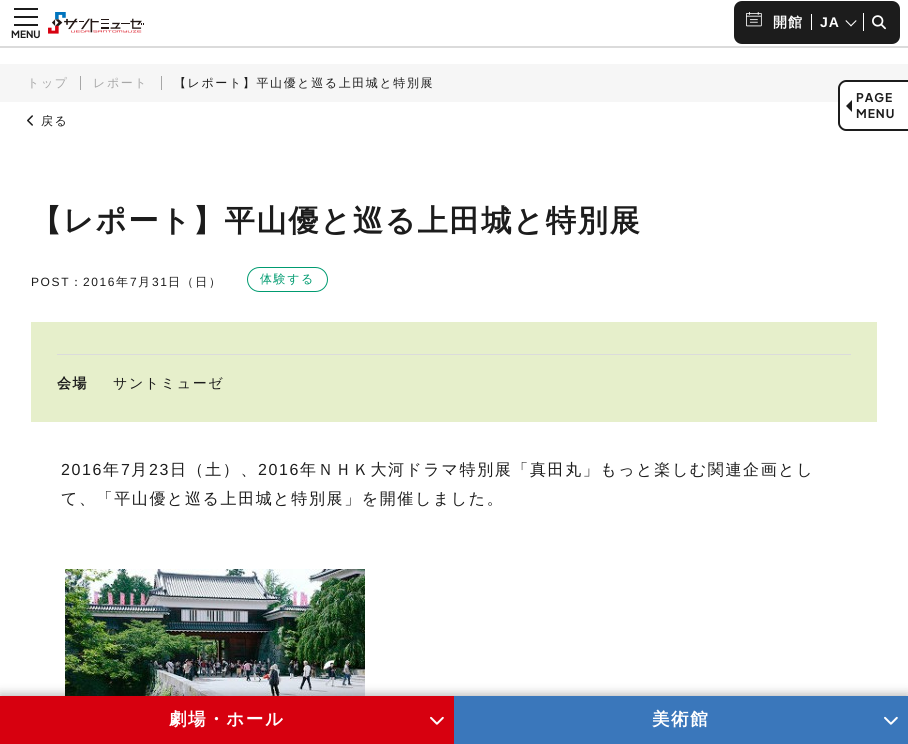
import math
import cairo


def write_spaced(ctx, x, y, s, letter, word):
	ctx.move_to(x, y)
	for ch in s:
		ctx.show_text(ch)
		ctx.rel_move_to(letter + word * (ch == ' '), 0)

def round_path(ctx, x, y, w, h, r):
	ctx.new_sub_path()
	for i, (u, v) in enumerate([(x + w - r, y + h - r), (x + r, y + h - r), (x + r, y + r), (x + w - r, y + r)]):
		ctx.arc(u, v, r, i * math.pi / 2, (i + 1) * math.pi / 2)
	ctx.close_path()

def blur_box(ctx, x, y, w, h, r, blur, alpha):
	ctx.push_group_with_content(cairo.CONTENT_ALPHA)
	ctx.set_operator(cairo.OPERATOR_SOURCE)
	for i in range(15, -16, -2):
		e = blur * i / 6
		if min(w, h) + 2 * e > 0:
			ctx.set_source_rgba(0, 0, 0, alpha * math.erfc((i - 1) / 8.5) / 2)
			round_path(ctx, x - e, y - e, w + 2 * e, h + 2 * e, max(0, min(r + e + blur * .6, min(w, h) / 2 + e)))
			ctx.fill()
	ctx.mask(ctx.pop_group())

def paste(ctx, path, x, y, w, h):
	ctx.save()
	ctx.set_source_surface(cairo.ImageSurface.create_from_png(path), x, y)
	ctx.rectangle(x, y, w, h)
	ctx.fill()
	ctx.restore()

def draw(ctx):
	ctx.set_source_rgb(1, 1, 1)
	ctx.paint()
	ctx.rectangle(-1, -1, 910, 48)
	ctx.set_source_rgb(0.859, 0.859, 0.859)
	ctx.stroke()
	paste(ctx, 'media/1.png', 48, 12, 96, 22)
	ctx.set_source_rgb(0.11, 0.11, 0.11)
	round_path(ctx, 734, 1, 166, 43, 8)
	ctx.fill()
	paste(ctx, 'media/2.png', 746, 12, 16, 15)
	ctx.select_font_face('WenQuanYi Zen Hei', cairo.FONT_SLANT_NORMAL, cairo.FONT_WEIGHT_BOLD)
	ctx.set_font_size(14)
	ctx.set_source_rgb(1, 1, 1)
	write_spaced(ctx, 773, 27, '開館', 1, 0)
	ctx.rectangle(811, 14, 1, 16)
	ctx.fill()
	ctx.select_font_face('Liberation Sans', cairo.FONT_SLANT_NORMAL, cairo.FONT_WEIGHT_BOLD)
	write_spaced(ctx, 820, 27, 'JA', 1, 0)
	ctx.new_path()
	ctx.move_to(856.5, 21)
	ctx.line_to(851, 26.5)
	ctx.line_to(850.5, 25.5)
	ctx.line_to(856, 20)
	ctx.close_path()
	ctx.fill()
	ctx.new_path()
	ctx.move_to(851.5, 25.5)
	ctx.line_to(851, 26.5)
	ctx.line_to(845.5, 21)
	ctx.line_to(846, 20)
	ctx.close_path()
	ctx.fill()
	ctx.rectangle(863, 13, 1, 18)
	ctx.fill()
	paste(ctx, 'media/3.png', 872, 15, 14, 15)
	ctx.set_source_rgb(0.11, 0.11, 0.11)
	ctx.rectangle(14, 8, 24, 2)
	ctx.rectangle(14, 16, 24, 2)
	ctx.rectangle(14, 24, 24, 2)
	ctx.fill()
	ctx.select_font_face('Plus Jakarta Sans', cairo.FONT_SLANT_NORMAL, cairo.FONT_WEIGHT_BOLD)
	ctx.set_font_size(10)
	ctx.move_to(11, 38)
	ctx.show_text('MENU')
	ctx.set_source_rgb(0.961, 0.961, 0.961)
	ctx.rectangle(0, 64, 908, 38)
	ctx.fill()
	ctx.select_font_face('WenQuanYi Zen Hei Medium')
	ctx.set_font_size(12)
	ctx.set_source_rgb(0.655, 0.655, 0.655)
	write_spaced(ctx, 27, 87, 'トップ', 1.6, 0)
	ctx.rectangle(80, 76, 1, 14)
	ctx.fill()
	write_spaced(ctx, 93, 87, 'レポート', 1.6, 0)
	ctx.rectangle(161, 76, 1, 14)
	ctx.fill()
	ctx.set_source_rgb(0.11, 0.11, 0.11)
	write_spaced(ctx, 174, 87, '【レポート】平山優と巡る上田城と特別展', 1.6, 0)
	ctx.set_source_rgb(1, 1, 1)
	ctx.new_path()
	ctx.move_to(846, 80)
	ctx.line_to(908, 80)
	ctx.line_to(908, 131)
	ctx.line_to(846, 131)
	ctx.curve_to(841.5, 131, 838, 127.5, 838, 123)
	ctx.line_to(838, 88)
	ctx.curve_to(838, 83.5, 841.5, 80, 846, 80)
	ctx.close_path()
	ctx.fill()
	ctx.set_source_rgb(0.11, 0.11, 0.11)
	ctx.set_fill_rule(cairo.FILL_RULE_EVEN_ODD)
	ctx.new_path()
	ctx.move_to(846, 80)
	ctx.line_to(908, 80)
	ctx.line_to(908, 131)
	ctx.line_to(846, 131)
	ctx.curve_to(842, 131, 838, 127, 838, 123)
	ctx.line_to(838, 88)
	ctx.curve_to(838, 84, 842, 80, 846, 80)
	ctx.close_path()
	ctx.move_to(846, 82)
	ctx.line_to(908, 82)
	ctx.line_to(908, 129)
	ctx.line_to(846, 129)
	ctx.curve_to(843, 129, 840, 126, 840, 123)
	ctx.line_to(840, 88)
	ctx.curve_to(840, 85, 843, 82, 846, 82)
	ctx.close_path()
	ctx.fill()
	ctx.set_fill_rule(cairo.FILL_RULE_WINDING)
	ctx.new_path()
	ctx.move_to(852, 100)
	ctx.line_to(852, 112)
	ctx.line_to(846, 106)
	ctx.close_path()
	ctx.fill()
	ctx.select_font_face('Plus Jakarta Sans', cairo.FONT_SLANT_NORMAL, cairo.FONT_WEIGHT_BOLD)
	write_spaced(ctx, 856, 102, 'PAGE', 1, 0)
	write_spaced(ctx, 856, 118, 'MENU', 1, 0)
	ctx.select_font_face('WenQuanYi Zen Hei', cairo.FONT_SLANT_NORMAL, cairo.FONT_WEIGHT_BOLD)
	ctx.set_font_size(30.3)
	write_spaced(ctx, 31, 231, '【レポート】平山優と巡る上田城と特別展', 1.6, 0)
	ctx.select_font_face('Liberation Sans')
	ctx.set_font_size(12)
	write_spaced(ctx, 31, 286, 'POST', 1.6, 0)
	ctx.select_font_face('WenQuanYi Zen Hei Medium')
	write_spaced(ctx, 70, 286, '：', 1.6, 0)
	ctx.select_font_face('Liberation Sans')
	write_spaced(ctx, 83, 286, '2016', 1.6, 0)
	ctx.select_font_face('WenQuanYi Zen Hei Medium')
	write_spaced(ctx, 116, 286, '年', 1.6, 0)
	ctx.select_font_face('Liberation Sans')
	write_spaced(ctx, 130, 286, '7', 1.6, 0)
	ctx.select_font_face('WenQuanYi Zen Hei Medium')
	write_spaced(ctx, 138, 286, '月', 1.6, 0)
	ctx.select_font_face('Liberation Sans')
	write_spaced(ctx, 152, 286, '31', 1.6, 0)
	ctx.select_font_face('WenQuanYi Zen Hei Medium')
	write_spaced(ctx, 168, 286, '日（日）', 1.6, 0)
	round_path(ctx, 247.5, 267.5, 80, 24, 12)
	ctx.set_source_rgb(0, 0.608, 0.439)
	ctx.set_line_width(1)
	ctx.stroke()
	write_spaced(ctx, 260, 283, '体験する', 1.6, 0)
	ctx.set_source_rgb(0.902, 0.937, 0.796)
	ctx.rectangle(31, 322, 846, 100)
	ctx.fill()
	ctx.set_source_rgb(0.859, 0.859, 0.859)
	ctx.rectangle(57, 354, 794, 1)
	ctx.fill()
	ctx.select_font_face('WenQuanYi Zen Hei', cairo.FONT_SLANT_NORMAL, cairo.FONT_WEIGHT_BOLD)
	ctx.set_font_size(14)
	ctx.set_source_rgb(0.11, 0.11, 0.11)
	write_spaced(ctx, 57, 388, '会場', 1.6, 0)
	ctx.select_font_face('WenQuanYi Zen Hei Medium')
	write_spaced(ctx, 113, 388, 'サントミューゼ', 1.6, 0)
	ctx.select_font_face('Liberation Sans')
	ctx.set_font_size(16)
	write_spaced(ctx, 61, 475, '2016', 1.6, 0)
	ctx.select_font_face('WenQuanYi Zen Hei Medium')
	write_spaced(ctx, 103, 475, '年', 1.6, 0)
	ctx.select_font_face('Liberation Sans')
	write_spaced(ctx, 121, 475, '7', 1.6, 0)
	ctx.select_font_face('WenQuanYi Zen Hei Medium')
	write_spaced(ctx, 131, 475, '月', 1.6, 0)
	ctx.select_font_face('Liberation Sans')
	write_spaced(ctx, 149, 475, '23', 1.6, 0)
	ctx.select_font_face('WenQuanYi Zen Hei Medium')
	write_spaced(ctx, 170, 475, '日（土）、', 1.6, 0)
	ctx.select_font_face('Liberation Sans')
	write_spaced(ctx, 258, 475, '2016', 1.6, 0)
	ctx.select_font_face('WenQuanYi Zen Hei Medium')
	write_spaced(ctx, 300, 475, '年ＮＨＫ大河ドラマ特別展「真田丸」もっと楽しむ関連企画とし', 1.6, 0)
	write_spaced(ctx, 61, 504, 'て、「平山優と巡る上田城と特別展」を開催しました。', 1.6, 0)
	paste(ctx, 'media/4.png', 65, 569, 300, 127)
	paste(ctx, 'media/5.png', 27, 115, 6, 11)
	ctx.set_font_size(12)
	write_spaced(ctx, 41, 125, '戻る', 1.6, 0)
	ctx.set_source_rgb(0.11, 0.11, 0.11)
	blur_box(ctx, 0, 694, 908, 48, 0, 5, 0.32)
	ctx.set_source_rgb(0.843, 0, 0.059)
	ctx.rectangle(0, 696, 454, 48)
	ctx.fill()
	ctx.select_font_face('WenQuanYi Zen Hei', cairo.FONT_SLANT_NORMAL, cairo.FONT_WEIGHT_BOLD)
	ctx.set_font_size(17.5)
	ctx.set_source_rgb(1, 1, 1)
	write_spaced(ctx, 169, 725, '劇場・ホール', 1.6, 0)
	paste(ctx, 'media/6.png', 430, 716, 14, 9)
	ctx.set_source_rgb(0.227, 0.467, 0.733)
	ctx.rectangle(454, 696, 454, 48)
	ctx.fill()
	ctx.set_source_rgb(1, 1, 1)
	write_spaced(ctx, 652, 725, '美術館', 1.6, 0)
	paste(ctx, 'media/7.png', 884, 716, 14, 9)


surface = cairo.ImageSurface(cairo.FORMAT_RGB24, 908, 744)
ctx = cairo.Context(surface)
options = cairo.FontOptions()
options.set_hint_metrics(cairo.HINT_METRICS_OFF)
options.set_hint_style(cairo.HINT_STYLE_NONE)
ctx.set_font_options(options)
ctx.set_miter_limit(4)
draw(ctx)
surface.write_to_png('image.png')
